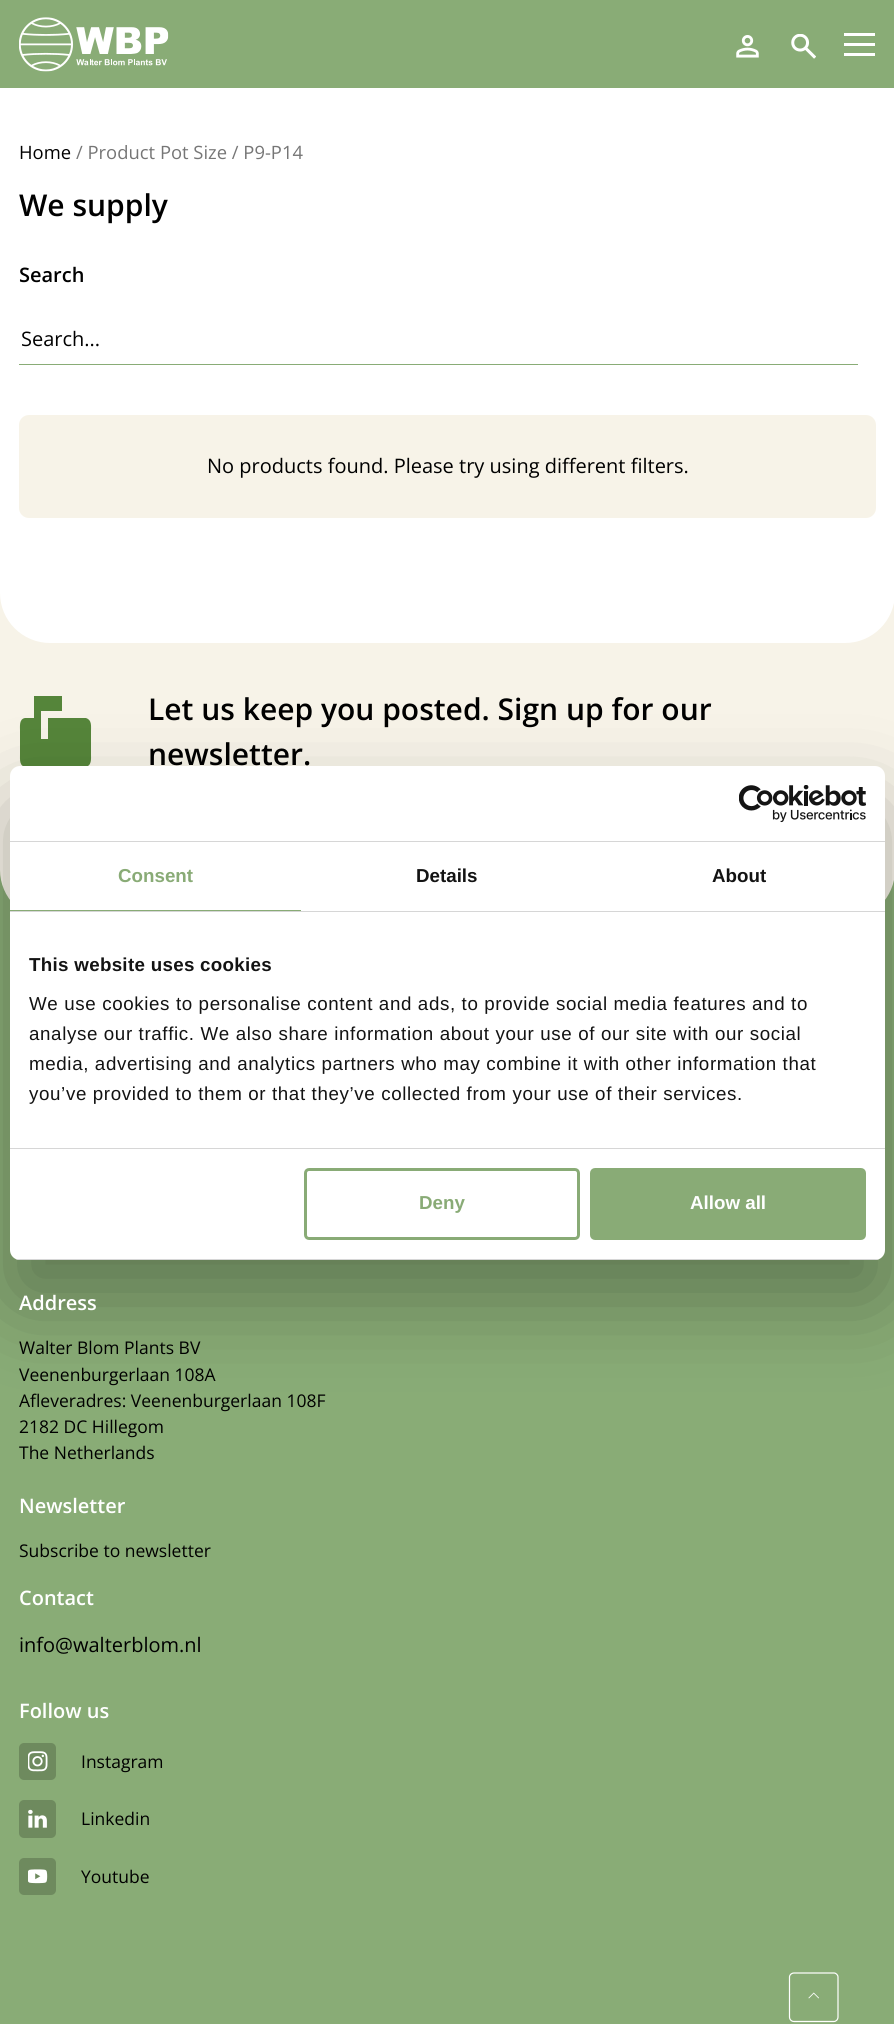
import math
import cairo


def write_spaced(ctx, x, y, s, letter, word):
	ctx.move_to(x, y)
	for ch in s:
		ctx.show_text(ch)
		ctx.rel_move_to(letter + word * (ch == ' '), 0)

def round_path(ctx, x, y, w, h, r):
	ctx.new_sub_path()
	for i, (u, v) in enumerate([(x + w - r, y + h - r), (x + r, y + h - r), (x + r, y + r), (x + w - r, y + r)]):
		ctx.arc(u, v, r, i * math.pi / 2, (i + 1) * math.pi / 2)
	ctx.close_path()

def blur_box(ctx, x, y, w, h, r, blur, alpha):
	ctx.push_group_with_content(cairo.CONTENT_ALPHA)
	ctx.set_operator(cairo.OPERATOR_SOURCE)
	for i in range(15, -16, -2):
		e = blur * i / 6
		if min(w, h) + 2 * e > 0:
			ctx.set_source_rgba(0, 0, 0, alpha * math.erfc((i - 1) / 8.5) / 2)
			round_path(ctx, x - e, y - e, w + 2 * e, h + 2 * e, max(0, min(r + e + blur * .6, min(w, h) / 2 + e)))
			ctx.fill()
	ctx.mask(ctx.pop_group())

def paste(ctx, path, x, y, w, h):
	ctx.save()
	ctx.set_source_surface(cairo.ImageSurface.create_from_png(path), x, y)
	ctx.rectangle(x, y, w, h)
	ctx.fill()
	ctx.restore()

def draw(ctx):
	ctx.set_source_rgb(0.965, 0.953, 0.91)
	ctx.paint()
	ctx.set_source_rgb(0.537, 0.675, 0.463)
	ctx.rectangle(0, 0, 894, 88)
	ctx.fill()
	paste(ctx, 'media/1.png', 19, 17, 150, 55)
	paste(ctx, 'media/2.png', 736, 35, 23, 23)
	paste(ctx, 'media/3.png', 791, 34, 25, 25)
	ctx.set_source_rgb(1, 1, 1)
	ctx.rectangle(844, 33, 31, 3)
	ctx.rectangle(844, 43, 31, 3)
	ctx.rectangle(844, 53, 31, 3)
	ctx.fill()
	ctx.new_path()
	ctx.move_to(0, 88)
	ctx.line_to(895, 88)
	ctx.line_to(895, 593)
	ctx.curve_to(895, 620.5, 872.5, 643, 845, 643)
	ctx.line_to(50, 643)
	ctx.curve_to(22.5, 643, 0, 620.5, 0, 593)
	ctx.close_path()
	ctx.fill()
	ctx.select_font_face('Open Sans')
	ctx.set_font_size(18.4)
	ctx.set_source_rgb(0, 0, 0)
	ctx.move_to(19, 159)
	ctx.show_text('Home')
	ctx.set_source_rgb(0.463, 0.463, 0.463)
	ctx.move_to(76, 159)
	ctx.show_text('/ Product Pot Size / P9-P14')
	ctx.select_font_face('Open Sans SemiBold')
	ctx.set_font_size(30)
	ctx.set_source_rgb(0, 0, 0)
	ctx.move_to(19, 216)
	ctx.show_text('We supply')
	ctx.set_font_size(20)
	ctx.move_to(19, 282)
	ctx.show_text('Search')
	ctx.set_source_rgb(0.537, 0.675, 0.463)
	ctx.rectangle(19, 364, 839, 1)
	ctx.fill()
	ctx.select_font_face('Open Sans')
	ctx.set_source_rgb(0, 0, 0)
	ctx.move_to(21, 346)
	ctx.show_text('Search...')
	ctx.set_source_rgb(0.965, 0.953, 0.91)
	round_path(ctx, 19, 415, 857, 103, 10)
	ctx.fill()
	ctx.set_source_rgb(0, 0, 0)
	ctx.move_to(207, 473)
	ctx.show_text('No products found. Please try using different filters.')
	ctx.set_source_rgb(0.537, 0.675, 0.463)
	ctx.rectangle(0, 870, 894, 50)
	ctx.fill()
	ctx.set_source_rgb(0.965, 0.953, 0.91)
	ctx.new_path()
	ctx.move_to(0, 643)
	ctx.line_to(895, 643)
	ctx.line_to(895, 870)
	ctx.curve_to(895, 897.5, 872.5, 920, 845, 920)
	ctx.line_to(50, 920)
	ctx.curve_to(22.5, 920, 0, 897.5, 0, 870)
	ctx.close_path()
	ctx.fill()
	ctx.set_source_rgb(0.333, 0.522, 0.227)
	ctx.new_path()
	ctx.move_to(27, 767)
	ctx.curve_to(19, 767, 20, 760, 20, 754)
	ctx.line_to(20, 731)
	ctx.curve_to(20, 726, 19, 719, 25, 718)
	ctx.line_to(34, 718)
	ctx.line_to(34, 696)
	ctx.line_to(62, 696)
	ctx.line_to(62, 711)
	ctx.line_to(41, 711)
	ctx.line_to(41, 739)
	ctx.line_to(48, 739)
	ctx.line_to(48, 718)
	ctx.line_to(86, 718)
	ctx.curve_to(92, 720, 91, 726, 91, 731)
	ctx.line_to(91, 754)
	ctx.curve_to(91, 759, 92, 766, 85, 767)
	ctx.close_path()
	ctx.fill()
	ctx.select_font_face('Open Sans SemiBold')
	ctx.set_font_size(30)
	ctx.set_source_rgb(0, 0, 0)
	ctx.move_to(148, 720)
	ctx.show_text('Let us keep you posted. Sign up for our')
	ctx.move_to(148, 765)
	ctx.show_text('newsletter.')
	ctx.set_source_rgb(0.537, 0.675, 0.463)
	ctx.rectangle(0, 2010, 894, 14)
	ctx.fill()
	ctx.new_path()
	ctx.move_to(0, 920)
	ctx.line_to(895, 920)
	ctx.line_to(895, 2010)
	ctx.curve_to(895, 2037.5, 872.5, 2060, 845, 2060)
	ctx.line_to(50, 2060)
	ctx.curve_to(22.5, 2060, 0, 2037.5, 0, 2010)
	ctx.close_path()
	ctx.fill()
	ctx.set_source_rgb(0, 0, 0)
	blur_box(ctx, 10, 806, 875, 494, 10, 42.5, 0.3)
	ctx.set_source_rgb(1, 1, 1)
	round_path(ctx, 10, 766, 875, 494, 10)
	ctx.fill()
	ctx.set_source_rgb(0.839, 0.839, 0.839)
	ctx.rectangle(10, 841, 875, 1)
	ctx.fill()
	paste(ctx, 'media/4.png', 739, 785, 127, 38)
	ctx.rectangle(10, 911, 875, 1)
	ctx.fill()
	ctx.set_source_rgb(0.537, 0.671, 0.463)
	ctx.rectangle(10, 910, 291, 1)
	ctx.fill()
	ctx.select_font_face('Liberation Sans', cairo.FONT_SLANT_NORMAL, cairo.FONT_WEIGHT_BOLD)
	ctx.set_font_size(18.75)
	ctx.move_to(118, 882)
	ctx.show_text('Consent')
	ctx.set_source_rgb(0.078, 0.078, 0.078)
	ctx.move_to(416, 882)
	ctx.show_text('Details')
	ctx.move_to(712, 882)
	ctx.show_text('About')
	ctx.set_source_rgb(0.839, 0.839, 0.839)
	ctx.rectangle(10, 1148, 875, 1)
	ctx.fill()
	ctx.set_source_rgb(0.078, 0.078, 0.078)
	write_spaced(ctx, 29, 971, 'This website uses cookies', 0.3, 0)
	ctx.select_font_face('Liberation Sans')
	for x, y, s in [
		(29, 1010, 'We use cookies to personalise content and ads, to provide social media features and to'),
		(29, 1040, 'analyse our traffic. We also share information about your use of our site with our social'),
		(29, 1070, 'media, advertising and analytics partners who may combine it with other information that'),
		(29, 1100, 'you’ve provided to them or that they’ve collected from your use of their services.'),
	]:
		write_spaced(ctx, x, y, s, 0.62, 0)
	ctx.save()
	round_path(ctx, 10, 766, 875, 494, 10)
	ctx.clip()
	ctx.set_source_rgb(0.839, 0.839, 0.839)
	ctx.rectangle(10, 1259, 875, 1)
	ctx.fill()
	ctx.restore()
	round_path(ctx, 305.5, 1169.5, 273, 69, 3.5)
	ctx.set_source_rgb(0.537, 0.671, 0.463)
	ctx.set_line_width(3)
	ctx.stroke()
	ctx.select_font_face('Liberation Sans', cairo.FONT_SLANT_NORMAL, cairo.FONT_WEIGHT_BOLD)
	ctx.move_to(419, 1209)
	ctx.show_text('Deny')
	round_path(ctx, 591.5, 1169.5, 273, 69, 3.5)
	ctx.fill_preserve()
	ctx.stroke()
	ctx.set_source_rgb(1, 1, 1)
	ctx.move_to(690, 1209)
	ctx.show_text('Allow all')
	ctx.select_font_face('Open Sans SemiBold')
	ctx.set_font_size(20)
	ctx.move_to(19, 1310)
	ctx.show_text('Address')
	ctx.select_font_face('Open Sans')
	ctx.set_font_size(17.5)
	ctx.set_source_rgb(0, 0, 0)
	for x, y, s in [
		(19, 1354, 'Walter Blom Plants BV'),
		(19, 1381, 'Veenenburgerlaan 108A'),
		(19, 1407, 'Afleveradres: Veenenburgerlaan 108F'),
		(19, 1433, '2182 DC Hillegom'),
		(19, 1459, 'The Netherlands'),
	]:
		ctx.move_to(x, y)
		ctx.show_text(s)
	ctx.select_font_face('Open Sans SemiBold')
	ctx.set_font_size(20)
	ctx.set_source_rgb(1, 1, 1)
	ctx.move_to(19, 1513)
	ctx.show_text('Newsletter')
	ctx.select_font_face('Open Sans')
	ctx.set_font_size(17.5)
	ctx.set_source_rgb(0, 0, 0)
	ctx.move_to(19, 1557)
	ctx.show_text('Subscribe to newsletter')
	ctx.select_font_face('Open Sans SemiBold')
	ctx.set_font_size(20)
	ctx.set_source_rgb(1, 1, 1)
	ctx.move_to(19, 1605)
	ctx.show_text('Contact')
	ctx.select_font_face('Open Sans')
	ctx.set_source_rgb(0, 0, 0)
	ctx.move_to(19, 1652)
	ctx.show_text('info@walterblom.nl')
	ctx.select_font_face('Open Sans SemiBold')
	ctx.set_source_rgb(1, 1, 1)
	ctx.move_to(19, 1718)
	ctx.show_text('Follow us')
	ctx.set_source_rgb(0.431, 0.541, 0.369)
	round_path(ctx, 19, 1743, 37, 37, 5)
	ctx.fill()
	paste(ctx, 'media/5.png', 28, 1751, 20, 21)
	ctx.select_font_face('Open Sans')
	ctx.set_font_size(17.5)
	ctx.set_source_rgb(0, 0, 0)
	ctx.move_to(81, 1768)
	ctx.show_text('Instagram')
	ctx.set_source_rgb(0.431, 0.541, 0.369)
	round_path(ctx, 19, 1800, 37, 38, 5)
	ctx.fill()
	paste(ctx, 'media/6.png', 28, 1809, 19, 19)
	ctx.set_source_rgb(0, 0, 0)
	ctx.move_to(81, 1825)
	ctx.show_text('Linkedin')
	ctx.set_source_rgb(0.431, 0.541, 0.369)
	round_path(ctx, 19, 1858, 37, 37, 5)
	ctx.fill()
	paste(ctx, 'media/7.png', 28, 1869, 20, 15)
	ctx.set_source_rgb(0, 0, 0)
	ctx.move_to(81, 1883)
	ctx.show_text('Youtube')
	ctx.new_path()
	ctx.move_to(834, 2021.5)
	ctx.line_to(794, 2021.5)
	ctx.curve_to(791.5, 2021.5, 789.5, 2019.5, 789.5, 2017)
	ctx.line_to(789.5, 1977)
	ctx.curve_to(789.5, 1975, 791.5, 1973, 794, 1973)
	ctx.line_to(834, 1973)
	ctx.curve_to(836, 1973, 838, 1975, 838, 1977)
	ctx.line_to(838, 2017)
	ctx.curve_to(838, 2019.5, 836, 2021.5, 834, 2021.5)
	ctx.close_path()
	ctx.set_source_rgb(1, 1, 1)
	ctx.set_line_width(1.2)
	ctx.stroke()
	paste(ctx, 'media/8.png', 808, 1992, 11, 7)


surface = cairo.ImageSurface(cairo.FORMAT_RGB24, 894, 2024)
ctx = cairo.Context(surface)
options = cairo.FontOptions()
options.set_hint_metrics(cairo.HINT_METRICS_OFF)
options.set_hint_style(cairo.HINT_STYLE_NONE)
ctx.set_font_options(options)
ctx.set_miter_limit(4)
draw(ctx)
surface.write_to_png('image.png')
